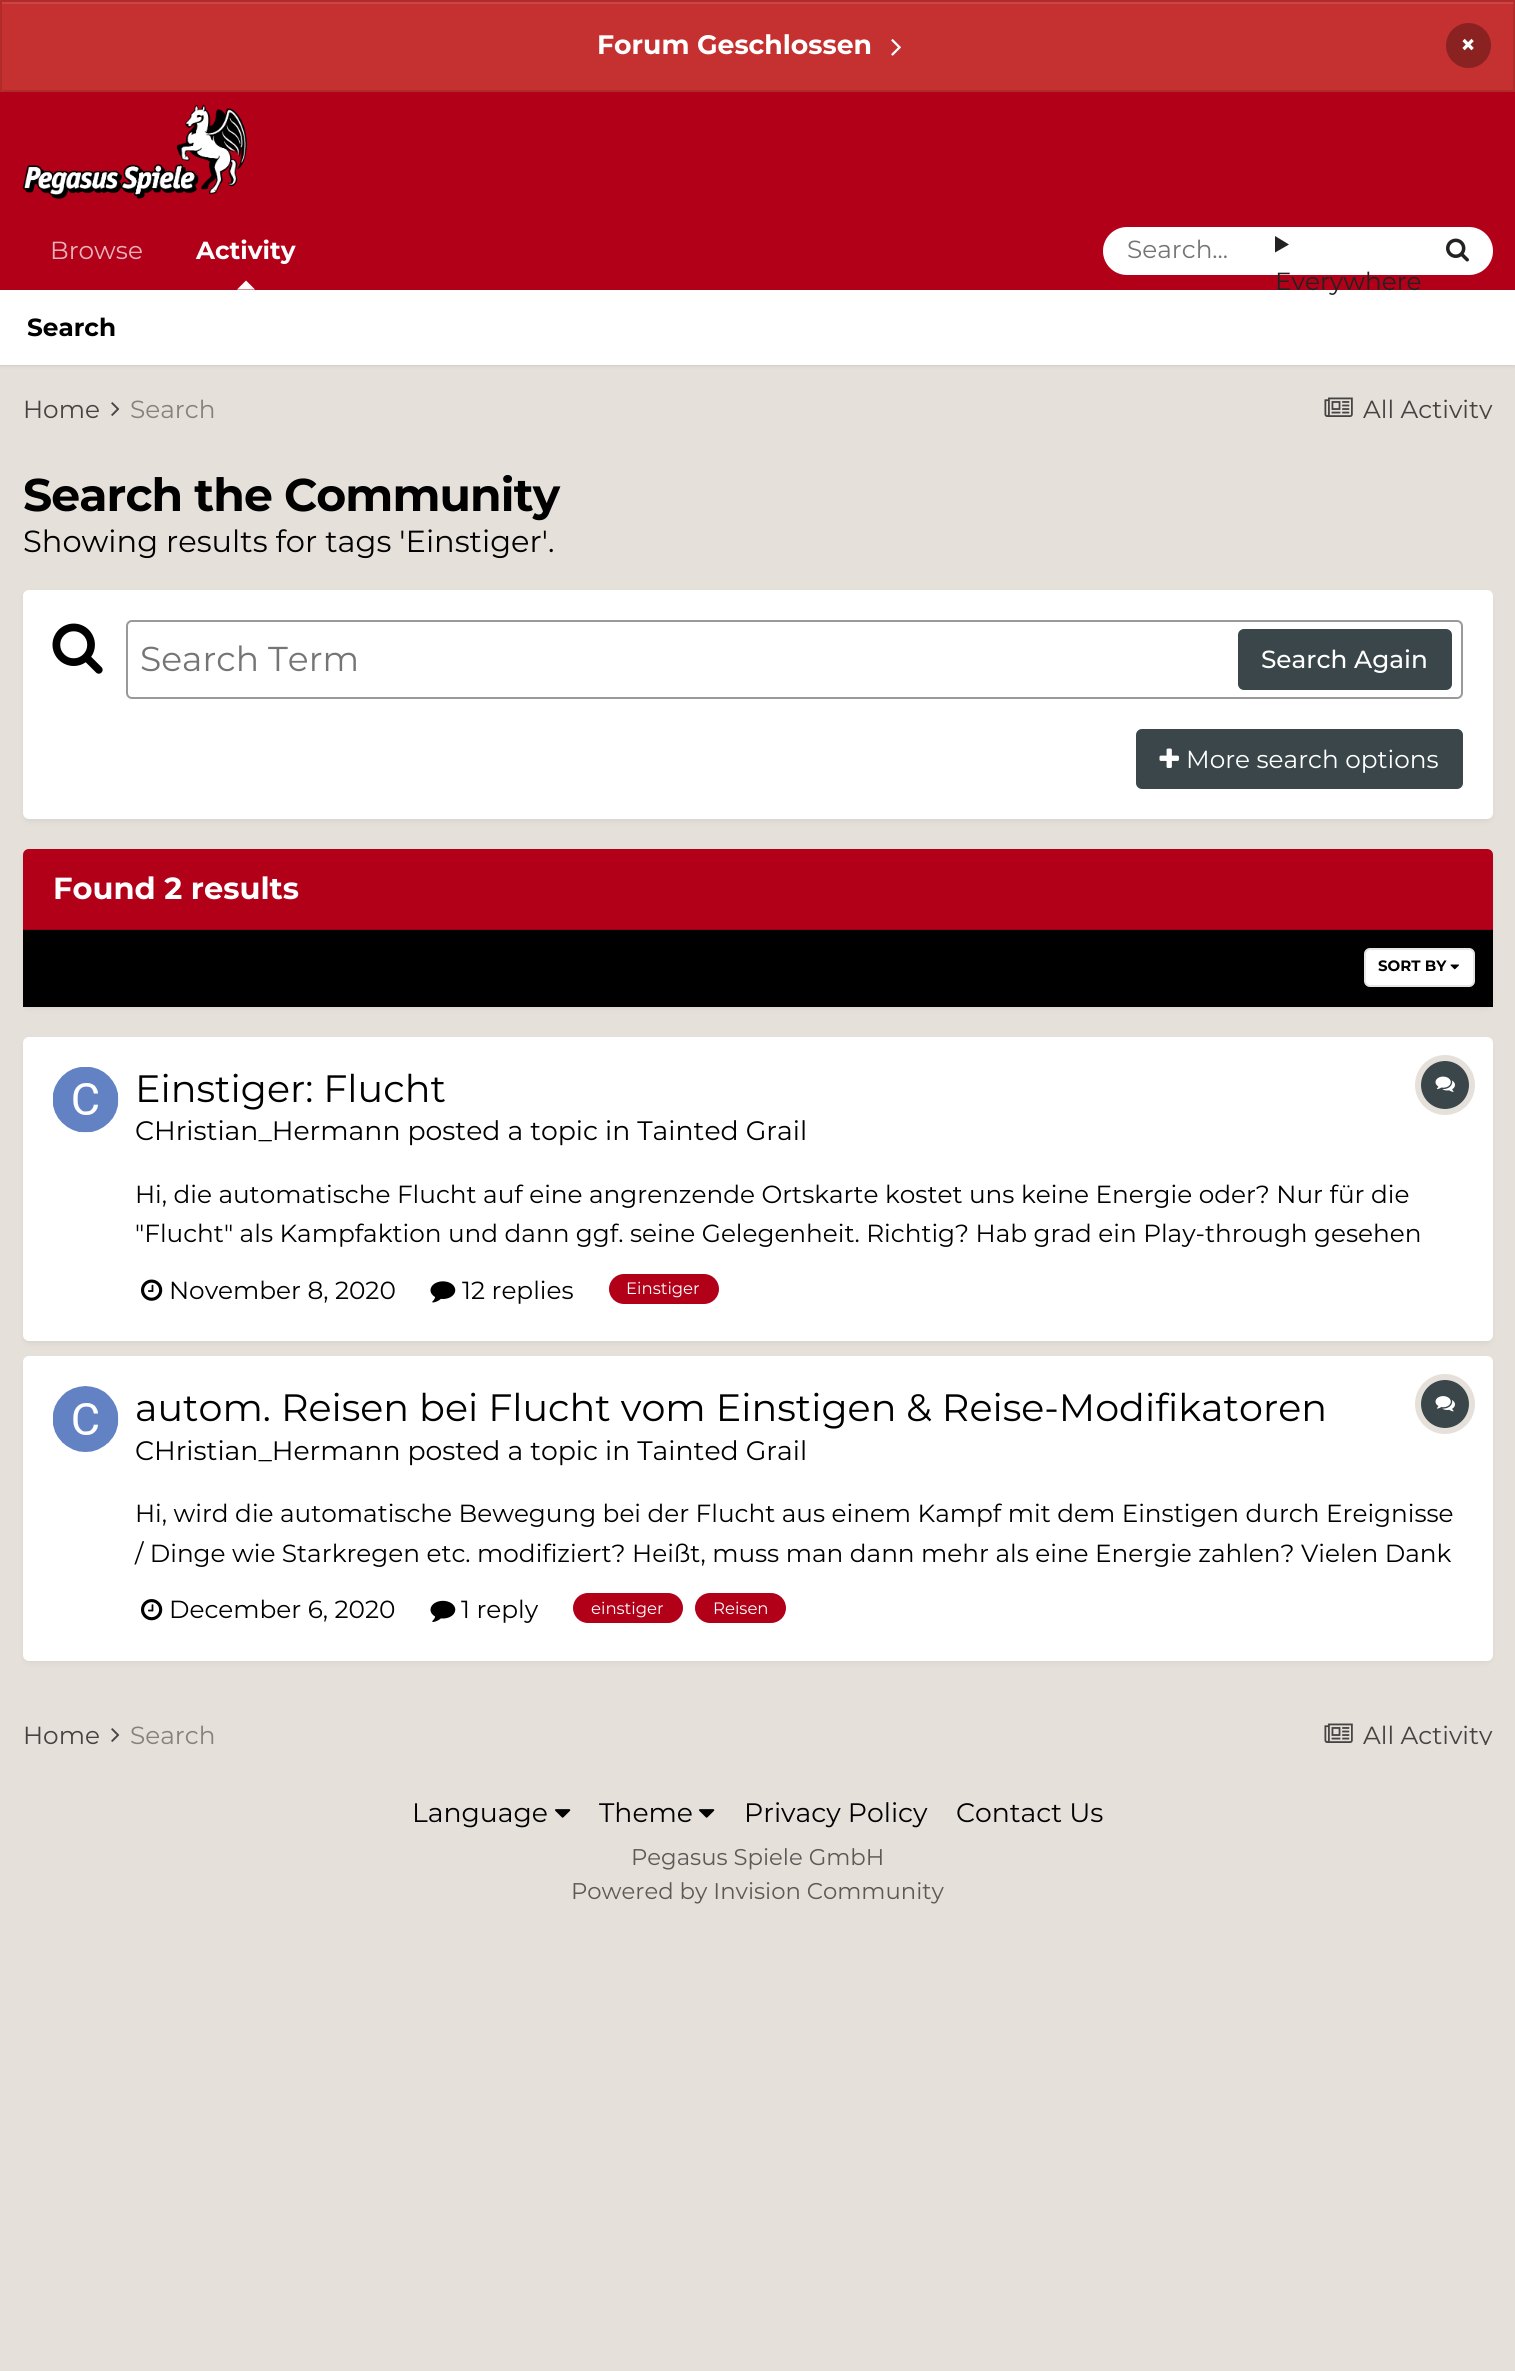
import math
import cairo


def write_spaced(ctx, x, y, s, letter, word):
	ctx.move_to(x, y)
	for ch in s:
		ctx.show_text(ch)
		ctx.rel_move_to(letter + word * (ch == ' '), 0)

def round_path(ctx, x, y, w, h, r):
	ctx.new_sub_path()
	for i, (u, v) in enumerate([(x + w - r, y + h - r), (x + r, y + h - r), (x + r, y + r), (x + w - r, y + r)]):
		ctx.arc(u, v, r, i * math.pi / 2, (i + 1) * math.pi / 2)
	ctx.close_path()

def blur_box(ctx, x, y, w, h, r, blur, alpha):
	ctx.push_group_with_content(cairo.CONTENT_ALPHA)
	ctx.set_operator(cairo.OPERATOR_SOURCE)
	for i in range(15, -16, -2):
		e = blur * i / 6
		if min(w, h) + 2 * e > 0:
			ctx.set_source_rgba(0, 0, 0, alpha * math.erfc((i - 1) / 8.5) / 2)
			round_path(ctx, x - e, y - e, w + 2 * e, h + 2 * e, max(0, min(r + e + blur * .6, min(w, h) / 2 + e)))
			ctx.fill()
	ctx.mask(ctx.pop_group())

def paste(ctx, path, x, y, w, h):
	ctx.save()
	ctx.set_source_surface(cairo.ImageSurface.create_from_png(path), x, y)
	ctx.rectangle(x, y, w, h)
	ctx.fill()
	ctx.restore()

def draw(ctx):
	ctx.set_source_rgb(0.898, 0.878, 0.855)
	ctx.paint()
	ctx.set_source_rgb(0.773, 0.188, 0.188)
	ctx.rectangle(0, 0, 1515, 92)
	ctx.fill()
	ctx.set_source_rgb(0.796, 0.271, 0.271)
	ctx.rectangle(2, 2, 1512, 2)
	ctx.fill()
	ctx.rectangle(1, 1, 1513, 90)
	ctx.set_source_rgba(0, 0, 0, 0.1)
	ctx.stroke()
	ctx.select_font_face('Montserrat', cairo.FONT_SLANT_NORMAL, cairo.FONT_WEIGHT_BOLD)
	ctx.set_font_size(26.7)
	ctx.set_source_rgb(1, 1, 1)
	ctx.move_to(597, 54)
	ctx.show_text('Forum Geschlossen')
	paste(ctx, 'media/1.png', 891, 39, 10, 17)
	ctx.set_source_rgb(0.541, 0.133, 0.133)
	ctx.arc(1468.5, 45.5, 22.5, 0, 2 * math.pi)
	ctx.fill()
	ctx.set_font_size(27)
	ctx.set_source_rgb(1, 1, 1)
	ctx.move_to(1460, 54)
	ctx.show_text('×')
	ctx.set_source_rgb(0.702, 0, 0.098)
	ctx.rectangle(0, 92, 1515, 198)
	ctx.fill()
	paste(ctx, 'media/2.png', 22, 104, 225, 95)
	ctx.set_font_size(24.75)
	ctx.set_source_rgb(1, 1, 1)
	ctx.move_to(196, 259)
	ctx.show_text('Activity')
	ctx.set_source_rgb(0, 0, 0)
	blur_box(ctx, 0, 291, 1515, 75, 0, 1.5, 0.1)
	ctx.set_source_rgb(1, 1, 1)
	ctx.new_path()
	ctx.move_to(255, 289.5)
	ctx.line_to(237, 289.5)
	ctx.line_to(246, 280.5)
	ctx.close_path()
	ctx.fill()
	ctx.rectangle(0, 290, 1515, 75)
	ctx.fill()
	ctx.set_source_rgb(0, 0, 0)
	ctx.move_to(27, 336)
	ctx.show_text('Search')
	ctx.select_font_face('Montserrat')
	ctx.set_source_rgb(0.91, 0.702, 0.729)
	ctx.move_to(50, 259)
	ctx.show_text('Browse')
	ctx.set_source_rgb(1, 1, 1)
	round_path(ctx, 1103, 227, 390, 48, 24)
	ctx.fill()
	ctx.set_source_rgb(0.459, 0.459, 0.459)
	ctx.move_to(1127, 258)
	ctx.show_text('Search...')
	paste(ctx, 'media/3.png', 1446, 238, 23, 24)
	ctx.set_source_rgb(0.133, 0.133, 0.133)
	ctx.new_path()
	ctx.move_to(1275, 236)
	ctx.line_to(1289, 244.5)
	ctx.line_to(1275, 252.5)
	ctx.close_path()
	ctx.fill()
	ctx.move_to(1275, 290)
	ctx.show_text('Everywhere')
	ctx.set_source_rgb(0.271, 0.263, 0.255)
	ctx.move_to(23, 418)
	ctx.show_text('Home')
	paste(ctx, 'media/4.png', 111, 402, 9, 14)
	ctx.set_source_rgb(0.522, 0.51, 0.494)
	ctx.move_to(130, 418)
	ctx.show_text('Search')
	paste(ctx, 'media/5.png', 1324, 397, 29, 20)
	ctx.save()
	ctx.rectangle(1320, 396, 173, 23)
	ctx.clip()
	ctx.set_source_rgb(0.271, 0.263, 0.255)
	ctx.move_to(1363, 418)
	ctx.show_text('All Activity')
	ctx.restore()
	ctx.select_font_face('Montserrat', cairo.FONT_SLANT_NORMAL, cairo.FONT_WEIGHT_BOLD)
	ctx.set_font_size(45.75)
	ctx.set_source_rgb(0, 0, 0)
	write_spaced(ctx, 23, 511, 'Search the Community', -0.9, 0)
	ctx.select_font_face('Montserrat')
	ctx.set_font_size(30.5)
	ctx.move_to(23, 552)
	ctx.show_text('Showing results for tags \'Einstiger\'.')
	ctx.set_source_rgb(0.227, 0.275, 0.286)
	blur_box(ctx, 24, 594, 1467, 227, 5, 3, 0.1)
	ctx.set_source_rgb(1, 1, 1)
	round_path(ctx, 23, 590, 1470, 229, 6)
	ctx.fill()
	paste(ctx, 'media/6.png', 52, 623, 51, 51)
	round_path(ctx, 127, 621, 1335, 77, 5)
	ctx.set_source_rgb(0.6, 0.6, 0.6)
	ctx.stroke()
	ctx.set_font_size(34.5)
	ctx.set_source_rgb(0.459, 0.459, 0.459)
	ctx.move_to(140, 671)
	ctx.show_text('Search Term')
	ctx.set_source_rgb(0.227, 0.275, 0.286)
	round_path(ctx, 1238, 629, 214, 61, 6)
	ctx.fill()
	ctx.select_font_face('Montserrat Medium')
	ctx.set_font_size(24.75)
	ctx.set_source_rgb(1, 1, 1)
	ctx.move_to(1261, 668)
	ctx.show_text('Search Again')
	ctx.set_source_rgb(0.227, 0.275, 0.286)
	round_path(ctx, 1136, 729, 327, 60, 6)
	ctx.fill()
	paste(ctx, 'media/7.png', 1159, 748, 20, 20)
	ctx.select_font_face('Montserrat')
	ctx.set_source_rgb(1, 1, 1)
	ctx.move_to(1186, 768)
	ctx.show_text('More search options')
	ctx.set_source_rgb(0.227, 0.275, 0.286)
	blur_box(ctx, 24, 854, 1467, 154, 5, 3, 0.1)
	ctx.set_source_rgb(0.702, 0, 0.098)
	ctx.new_path()
	ctx.move_to(29, 849)
	ctx.line_to(1487, 849)
	ctx.curve_to(1490.5, 849, 1493, 851.5, 1493, 855)
	ctx.line_to(1493, 930)
	ctx.line_to(23, 930)
	ctx.line_to(23, 855)
	ctx.curve_to(23, 851.5, 25.5, 849, 29, 849)
	ctx.close_path()
	ctx.fill()
	ctx.set_source_rgba(0, 0, 0, 0.15)
	ctx.rectangle(23, 929, 1470, 1)
	ctx.fill()
	ctx.select_font_face('Montserrat', cairo.FONT_SLANT_NORMAL, cairo.FONT_WEIGHT_BOLD)
	ctx.set_font_size(30.5)
	ctx.set_source_rgb(1, 1, 1)
	ctx.move_to(53, 899)
	ctx.show_text('Found 2 results')
	ctx.set_source_rgb(0, 0, 0)
	ctx.rectangle(23, 930, 1470, 77)
	ctx.fill()
	ctx.set_source_rgb(1, 1, 1)
	round_path(ctx, 1364, 948, 111, 39, 6)
	ctx.fill()
	paste(ctx, 'media/8.png', 1450, 964, 9, 6)
	round_path(ctx, 1365, 949, 109, 37, 5)
	ctx.set_source_rgba(0, 0, 0, 0.1)
	ctx.stroke()
	ctx.set_font_size(15)
	ctx.set_source_rgb(0, 0, 0)
	ctx.move_to(1378, 971)
	ctx.show_text('SORT BY')
	ctx.set_source_rgb(0.227, 0.275, 0.286)
	blur_box(ctx, 24, 1041, 1467, 302, 5, 3, 0.1)
	ctx.set_source_rgb(1, 1, 1)
	round_path(ctx, 23, 1037, 1470, 304, 6)
	ctx.fill()
	paste(ctx, 'media/9.png', 53, 1067, 66, 66)
	ctx.select_font_face('Montserrat')
	ctx.set_font_size(38.1)
	ctx.set_source_rgb(0, 0, 0)
	ctx.move_to(135, 1102)
	ctx.show_text('Einstiger: Flucht')
	ctx.set_font_size(26.7)
	ctx.move_to(135, 1140)
	ctx.show_text('CHristian_Hermann posted a topic in Tainted Grail')
	ctx.new_path()
	ctx.arc(1445, 1085, 27, 0, 2 * math.pi)
	ctx.set_source_rgb(0.898, 0.878, 0.855)
	ctx.set_line_width(6)
	ctx.stroke()
	ctx.set_source_rgb(0.227, 0.275, 0.286)
	ctx.arc(1445, 1085, 24, 0, 2 * math.pi)
	ctx.fill()
	paste(ctx, 'media/10.png', 1435, 1076, 20, 16)
	ctx.set_font_size(24.75)
	ctx.set_source_rgb(0, 0, 0)
	ctx.move_to(135, 1203)
	ctx.show_text('Hi, die automatische Flucht auf eine angrenzende Ortskarte kostet uns keine Energie oder? Nur für die')
	ctx.move_to(135, 1242)
	ctx.show_text('"Flucht" als Kampfaktion und dann ggf. seine Gelegenheit. Richtig? Hab grad ein Play-through gesehen')
	paste(ctx, 'media/11.png', 141, 1279, 22, 22)
	ctx.move_to(169, 1299)
	ctx.show_text('November 8, 2020')
	paste(ctx, 'media/12.png', 430, 1281, 26, 22)
	ctx.move_to(462, 1299)
	ctx.show_text('12 replies')
	ctx.set_source_rgb(0.702, 0, 0.098)
	round_path(ctx, 609, 1274, 110, 30, 15)
	ctx.fill()
	ctx.set_font_size(16.5)
	ctx.set_source_rgb(1, 1, 1)
	ctx.move_to(626, 1294)
	ctx.show_text('Einstiger')
	ctx.set_source_rgb(0.227, 0.275, 0.286)
	blur_box(ctx, 24, 1361, 1467, 301, 5, 3, 0.1)
	ctx.set_source_rgb(1, 1, 1)
	round_path(ctx, 23, 1356, 1470, 305, 6)
	ctx.fill()
	paste(ctx, 'media/13.png', 53, 1386, 66, 66)
	ctx.set_font_size(38.1)
	ctx.set_source_rgb(0, 0, 0)
	ctx.move_to(135, 1421)
	ctx.show_text('autom. Reisen bei Flucht vom Einstigen & Reise-Modifikatoren')
	ctx.set_font_size(26.7)
	ctx.move_to(135, 1460)
	ctx.show_text('CHristian_Hermann posted a topic in Tainted Grail')
	ctx.new_path()
	ctx.arc(1445, 1404, 27, 0, 2 * math.pi)
	ctx.set_source_rgb(0.898, 0.878, 0.855)
	ctx.stroke()
	ctx.set_source_rgb(0.227, 0.275, 0.286)
	ctx.arc(1445, 1404, 24, 0, 2 * math.pi)
	ctx.fill()
	paste(ctx, 'media/14.png', 1435, 1396, 20, 16)
	ctx.set_font_size(24.75)
	ctx.set_source_rgb(0, 0, 0)
	ctx.move_to(135, 1522)
	ctx.show_text('Hi, wird die automatische Bewegung bei der Flucht aus einem Kampf mit dem Einstigen durch Ereignisse')
	ctx.move_to(135, 1562)
	ctx.show_text('/ Dinge wie Starkregen etc. modifiziert? Heißt, muss man dann mehr als eine Energie zahlen? Vielen Dank')
	paste(ctx, 'media/15.png', 141, 1599, 22, 22)
	ctx.move_to(169, 1618)
	ctx.show_text('December 6, 2020')
	paste(ctx, 'media/16.png', 430, 1600, 26, 22)
	ctx.move_to(461, 1618)
	ctx.show_text('1 reply')
	ctx.set_source_rgb(0.702, 0, 0.098)
	round_path(ctx, 573, 1593, 110, 30, 15)
	ctx.fill()
	ctx.set_font_size(16.5)
	ctx.set_source_rgb(1, 1, 1)
	ctx.move_to(591, 1614)
	ctx.show_text('einstiger')
	ctx.set_source_rgb(0.702, 0, 0.098)
	round_path(ctx, 695, 1593, 91, 30, 15)
	ctx.fill()
	ctx.set_source_rgb(1, 1, 1)
	ctx.move_to(713, 1614)
	ctx.show_text('Reisen')
	ctx.set_font_size(24.75)
	ctx.set_source_rgb(0.271, 0.263, 0.255)
	ctx.move_to(23, 1744)
	ctx.show_text('Home')
	paste(ctx, 'media/4.png', 111, 1728, 9, 14)
	ctx.set_source_rgb(0.522, 0.51, 0.494)
	ctx.move_to(130, 1744)
	ctx.show_text('Search')
	paste(ctx, 'media/5.png', 1324, 1723, 29, 20)
	ctx.save()
	ctx.rectangle(1320, 1722, 173, 23)
	ctx.clip()
	ctx.set_source_rgb(0.271, 0.263, 0.255)
	ctx.move_to(1363, 1744)
	ctx.show_text('All Activity')
	ctx.restore()
	ctx.set_font_size(26.7)
	ctx.set_source_rgb(0, 0, 0)
	ctx.move_to(412, 1822)
	ctx.show_text('Language')
	paste(ctx, 'media/17.png', 555, 1809, 16, 9)
	ctx.move_to(599, 1822)
	ctx.show_text('Theme')
	paste(ctx, 'media/17.png', 699, 1809, 16, 9)
	ctx.move_to(744, 1822)
	ctx.show_text('Privacy Policy')
	ctx.move_to(956, 1822)
	ctx.show_text('Contact Us')
	ctx.set_font_size(22.75)
	ctx.set_source_rgb(0.361, 0.353, 0.341)
	ctx.move_to(631, 1865)
	ctx.show_text('Pegasus Spiele GmbH')
	ctx.move_to(571, 1899)
	ctx.show_text('Powered by Invision Community')


surface = cairo.ImageSurface(cairo.FORMAT_RGB24, 1515, 2371)
ctx = cairo.Context(surface)
options = cairo.FontOptions()
options.set_hint_metrics(cairo.HINT_METRICS_OFF)
options.set_hint_style(cairo.HINT_STYLE_NONE)
ctx.set_font_options(options)
ctx.set_miter_limit(4)
draw(ctx)
surface.write_to_png('image.png')
